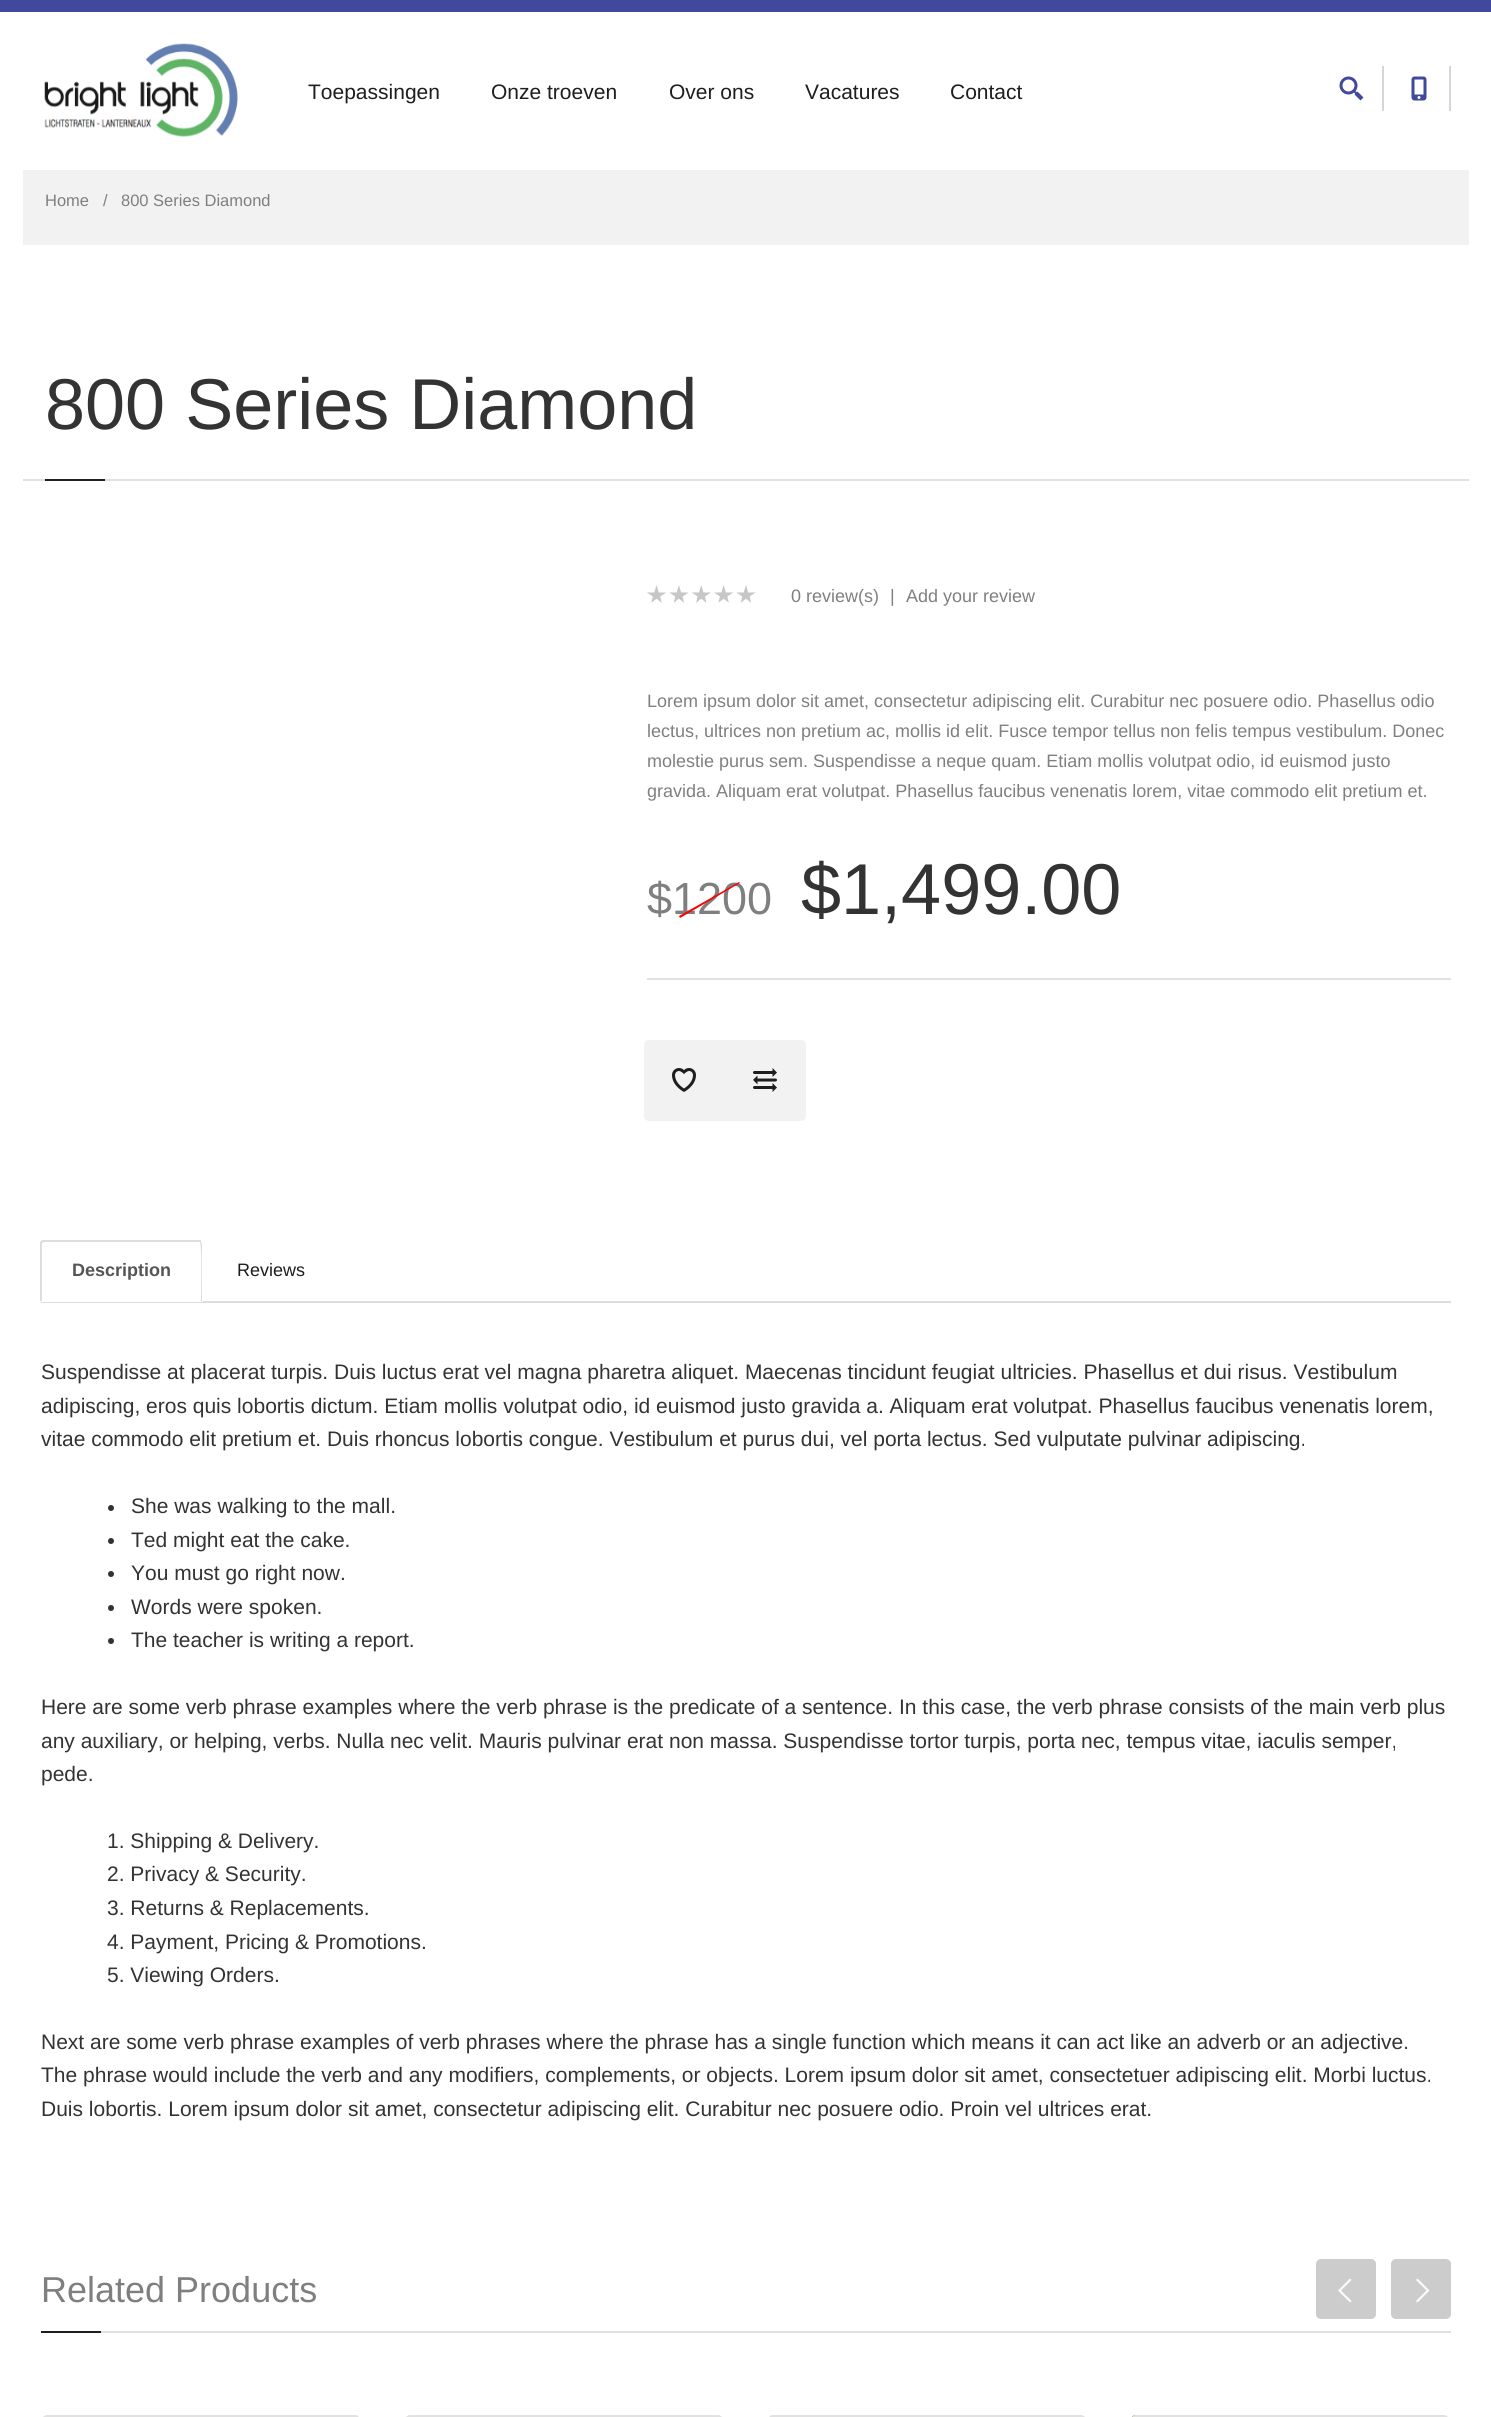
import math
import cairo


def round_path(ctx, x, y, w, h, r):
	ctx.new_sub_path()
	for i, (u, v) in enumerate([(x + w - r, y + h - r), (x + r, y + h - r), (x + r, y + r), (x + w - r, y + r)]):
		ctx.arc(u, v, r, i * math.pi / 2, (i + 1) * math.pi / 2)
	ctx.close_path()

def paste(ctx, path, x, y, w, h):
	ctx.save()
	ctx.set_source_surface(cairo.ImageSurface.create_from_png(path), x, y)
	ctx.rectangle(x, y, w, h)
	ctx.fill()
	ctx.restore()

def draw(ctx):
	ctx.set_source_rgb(1, 1, 1)
	ctx.paint()
	ctx.set_source_rgb(0.251, 0.286, 0.608)
	ctx.rectangle(0, 0, 1491, 12)
	ctx.fill()
	paste(ctx, 'media/1.png', 44, 43, 194, 94)
	ctx.select_font_face('Liberation Sans')
	ctx.set_font_size(21)
	ctx.set_source_rgb(0.118, 0.118, 0.118)
	for x, y, s in [
		(308, 99, 'Toepassingen'),
		(491, 99, 'Onze troeven'),
		(669, 99, 'Over ons'),
		(805, 99, 'Vacatures'),
		(950, 99, 'Contact'),
	]:
		ctx.move_to(x, y)
		ctx.show_text(s)
	ctx.set_source_rgb(0.839, 0.839, 0.839)
	ctx.rectangle(1382, 66, 2, 45)
	ctx.fill()
	paste(ctx, 'media/2.png', 1339, 76, 25, 25)
	ctx.rectangle(1449, 66, 2, 45)
	ctx.fill()
	paste(ctx, 'media/3.png', 1411, 76, 16, 25)
	ctx.set_source_rgb(0.949, 0.949, 0.949)
	ctx.rectangle(23, 170, 1446, 75)
	ctx.fill()
	ctx.set_font_size(16.5)
	ctx.set_source_rgb(0.498, 0.498, 0.498)
	for x, y, s in [
		(45, 206, 'Home'),
		(103, 206, '/'),
		(121, 206, '800 Series Diamond'),
	]:
		ctx.move_to(x, y)
		ctx.show_text(s)
	ctx.set_source_rgb(0.882, 0.882, 0.882)
	ctx.rectangle(23, 479, 1446, 2)
	ctx.fill()
	ctx.set_font_size(72)
	ctx.set_source_rgb(0.2, 0.2, 0.2)
	ctx.move_to(45, 429)
	ctx.show_text('800 Series Diamond')
	ctx.set_source_rgb(0.118, 0.118, 0.118)
	ctx.rectangle(45, 479, 60, 2)
	ctx.fill()
	paste(ctx, 'media/4.png', 647, 585, 109, 18)
	ctx.set_font_size(18)
	ctx.set_source_rgb(0.498, 0.498, 0.498)
	for x, y, s in [
		(791, 602, '0 review(s)'),
		(890, 602, '|'),
		(906, 602, 'Add your review'),
		(647, 707, 'Lorem ipsum dolor sit amet, consectetur adipiscing elit. Curabitur nec posuere odio. Phasellus odio'),
		(647, 737, 'lectus, ultrices non pretium ac, mollis id elit. Fusce tempor tellus non felis tempus vestibulum. Donec'),
		(647, 767, 'molestie purus sem. Suspendisse a neque quam. Etiam mollis volutpat odio, id euismod justo'),
		(647, 797, 'gravida. Aliquam erat volutpat. Phasellus faucibus venenatis lorem, vitae commodo elit pretium et.'),
	]:
		ctx.move_to(x, y)
		ctx.show_text(s)
	ctx.set_source_rgb(0.882, 0.882, 0.882)
	ctx.rectangle(647, 978, 804, 2)
	ctx.fill()
	ctx.set_font_size(45)
	ctx.set_source_rgb(0.498, 0.498, 0.498)
	ctx.move_to(647, 914)
	ctx.show_text('$1200')
	ctx.set_source_rgb(1, 0, 0)
	ctx.new_path()
	ctx.move_to(679, 916)
	ctx.line_to(739, 882)
	ctx.line_to(740, 883)
	ctx.line_to(680, 918)
	ctx.close_path()
	ctx.fill()
	ctx.set_font_size(72)
	ctx.set_source_rgb(0.2, 0.2, 0.2)
	ctx.move_to(801, 914)
	ctx.show_text('$1,499.00')
	ctx.set_source_rgb(0.949, 0.949, 0.949)
	ctx.new_path()
	ctx.move_to(649, 1040)
	ctx.line_to(725, 1040)
	ctx.line_to(725, 1121)
	ctx.line_to(649, 1121)
	ctx.curve_to(646, 1121, 644, 1119, 644, 1116)
	ctx.line_to(644, 1045)
	ctx.curve_to(644, 1042, 646, 1040, 649, 1040)
	ctx.close_path()
	ctx.fill()
	paste(ctx, 'media/5.png', 672, 1068, 24, 24)
	ctx.new_path()
	ctx.move_to(725, 1040)
	ctx.line_to(801, 1040)
	ctx.curve_to(804, 1040, 806, 1042, 806, 1045)
	ctx.line_to(806, 1116)
	ctx.curve_to(806, 1119, 804, 1121, 801, 1121)
	ctx.line_to(725, 1121)
	ctx.close_path()
	ctx.fill()
	paste(ctx, 'media/6.png', 753, 1068, 24, 24)
	ctx.set_source_rgb(0.867, 0.867, 0.867)
	ctx.rectangle(41, 1301, 1410, 2)
	ctx.fill()
	ctx.set_source_rgb(1, 1, 1)
	ctx.new_path()
	ctx.move_to(44, 1241)
	ctx.line_to(200, 1241)
	ctx.curve_to(201.5, 1241, 203, 1242.5, 203, 1244)
	ctx.line_to(203, 1302)
	ctx.line_to(41, 1302)
	ctx.line_to(41, 1244)
	ctx.curve_to(41, 1242.5, 42.5, 1241, 44, 1241)
	ctx.close_path()
	ctx.fill()
	ctx.set_source_rgb(0.867, 0.867, 0.867)
	ctx.new_path()
	ctx.move_to(44, 1242)
	ctx.line_to(43, 1243)
	ctx.line_to(41, 1241)
	ctx.line_to(42, 1240)
	ctx.line_to(201, 1240)
	ctx.line_to(201, 1242)
	ctx.line_to(200, 1243)
	ctx.line_to(200, 1242)
	ctx.close_path()
	ctx.fill()
	ctx.new_path()
	ctx.move_to(201, 1242)
	ctx.line_to(202, 1244)
	ctx.line_to(202, 1302)
	ctx.line_to(200, 1300)
	ctx.line_to(201, 1300)
	ctx.curve_to(201, 1293, 202, 1245, 200, 1243)
	ctx.close_path()
	ctx.fill()
	ctx.new_path()
	ctx.move_to(40, 1302)
	ctx.line_to(40, 1242)
	ctx.line_to(41, 1241)
	ctx.line_to(43, 1243)
	ctx.line_to(42, 1243)
	ctx.line_to(42, 1300)
	ctx.close_path()
	ctx.fill()
	ctx.select_font_face('Liberation Sans', cairo.FONT_SLANT_NORMAL, cairo.FONT_WEIGHT_BOLD)
	ctx.set_font_size(18)
	ctx.set_source_rgb(0.333, 0.333, 0.333)
	ctx.move_to(72, 1276)
	ctx.show_text('Description')
	ctx.select_font_face('Liberation Sans')
	ctx.set_source_rgb(0.118, 0.118, 0.118)
	ctx.move_to(237, 1276)
	ctx.show_text('Reviews')
	ctx.set_font_size(21)
	ctx.set_source_rgb(0.2, 0.2, 0.2)
	for x, y, s in [
		(41, 1379, 'Suspendisse at placerat turpis. Duis luctus erat vel magna pharetra aliquet. Maecenas tincidunt feugiat ultricies. Phasellus et dui risus. Vestibulum'),
		(41, 1413, 'adipiscing, eros quis lobortis dictum. Etiam mollis volutpat odio, id euismod justo gravida a. Aliquam erat volutpat. Phasellus faucibus venenatis lorem,'),
		(41, 1446, 'vitae commodo elit pretium et. Duis rhoncus lobortis congue. Vestibulum et purus dui, vel porta lectus. Sed vulputate pulvinar adipiscing.'),
	]:
		ctx.move_to(x, y)
		ctx.show_text(s)
	ctx.new_path()
	ctx.arc(111, 1508, 3, 0, 2 * math.pi)
	ctx.fill()
	ctx.move_to(131, 1513)
	ctx.show_text('She was walking to the mall.')
	ctx.new_path()
	ctx.arc(111, 1541, 3, 0, 2 * math.pi)
	ctx.fill()
	ctx.move_to(131, 1547)
	ctx.show_text('Ted might eat the cake.')
	ctx.new_path()
	ctx.arc(111, 1574, 3, 0, 2 * math.pi)
	ctx.fill()
	ctx.move_to(131, 1580)
	ctx.show_text('You must go right now.')
	ctx.new_path()
	ctx.arc(111, 1608, 3, 0, 2 * math.pi)
	ctx.fill()
	ctx.move_to(131, 1614)
	ctx.show_text('Words were spoken.')
	ctx.new_path()
	ctx.arc(111, 1641, 3, 0, 2 * math.pi)
	ctx.fill()
	for x, y, s in [
		(131, 1647, 'The teacher is writing a report.'),
		(41, 1714, 'Here are some verb phrase examples where the verb phrase is the predicate of a sentence. In this case, the verb phrase consists of the main verb plus'),
		(41, 1748, 'any auxiliary, or helping, verbs. Nulla nec velit. Mauris pulvinar erat non massa. Suspendisse tortor turpis, porta nec, tempus vitae, iaculis semper,'),
		(41, 1781, 'pede.'),
		(107, 1848, '1. Shipping & Delivery.'),
		(107, 1881, '2. Privacy & Security.'),
		(107, 1915, '3. Returns & Replacements.'),
		(107, 1949, '4. Payment, Pricing & Promotions.'),
		(107, 1982, '5. Viewing Orders.'),
		(41, 2049, 'Next are some verb phrase examples of verb phrases where the phrase has a single function which means it can act like an adverb or an adjective.'),
		(41, 2082, 'The phrase would include the verb and any modifiers, complements, or objects. Lorem ipsum dolor sit amet, consectetuer adipiscing elit. Morbi luctus.'),
		(41, 2116, 'Duis lobortis. Lorem ipsum dolor sit amet, consectetur adipiscing elit. Curabitur nec posuere odio. Proin vel ultrices erat.'),
	]:
		ctx.move_to(x, y)
		ctx.show_text(s)
	ctx.set_source_rgb(0.8, 0.8, 0.8)
	round_path(ctx, 1316, 2259, 60, 60, 5)
	ctx.fill()
	ctx.set_source_rgb(0.988, 0.988, 0.988)
	ctx.set_fill_rule(cairo.FILL_RULE_EVEN_ODD)
	ctx.new_path()
	ctx.move_to(1350, 2302.5)
	ctx.line_to(1351.5, 2301)
	ctx.line_to(1341, 2290.5)
	ctx.line_to(1351.5, 2280)
	ctx.line_to(1350, 2278.5)
	ctx.line_to(1338, 2290.5)
	ctx.close_path()
	ctx.fill()
	ctx.set_source_rgb(0.8, 0.8, 0.8)
	round_path(ctx, 1391, 2259, 60, 60, 5)
	ctx.fill()
	ctx.set_source_rgb(0.988, 0.988, 0.988)
	ctx.new_path()
	ctx.move_to(1417.5, 2278.5)
	ctx.line_to(1416, 2280)
	ctx.line_to(1426.5, 2290.5)
	ctx.line_to(1416, 2301)
	ctx.line_to(1417.5, 2302.5)
	ctx.line_to(1429.5, 2290.5)
	ctx.close_path()
	ctx.fill()
	ctx.save()
	ctx.set_fill_rule(cairo.FILL_RULE_WINDING)
	round_path(ctx, 42, 2415, 318, 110, 5)
	ctx.clip()
	ctx.set_source_rgb(0.882, 0.882, 0.882)
	ctx.rectangle(42, 2415, 318, 2)
	ctx.fill()
	ctx.restore()
	ctx.save()
	ctx.set_fill_rule(cairo.FILL_RULE_WINDING)
	round_path(ctx, 405, 2415, 318, 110, 5)
	ctx.clip()
	ctx.set_source_rgb(0.882, 0.882, 0.882)
	ctx.rectangle(405, 2415, 318, 2)
	ctx.fill()
	ctx.restore()
	ctx.save()
	ctx.set_fill_rule(cairo.FILL_RULE_WINDING)
	round_path(ctx, 768, 2415, 318, 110, 5)
	ctx.clip()
	ctx.set_source_rgb(0.882, 0.882, 0.882)
	ctx.rectangle(768, 2415, 318, 2)
	ctx.fill()
	ctx.restore()
	ctx.set_source_rgb(0.451, 0.553, 0)
	ctx.set_fill_rule(cairo.FILL_RULE_WINDING)
	ctx.new_path()
	ctx.move_to(1136, 2415)
	ctx.curve_to(1133, 2415, 1131, 2417, 1131, 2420)
	ctx.line_to(1131, 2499)
	ctx.line_to(1215, 2415)
	ctx.close_path()
	ctx.fill()
	ctx.save()
	round_path(ctx, 1131, 2415, 318, 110, 5)
	ctx.clip()
	ctx.set_source_rgb(0.882, 0.882, 0.882)
	ctx.rectangle(1131, 2415, 318, 2)
	ctx.fill()
	ctx.restore()
	ctx.set_source_rgb(0.882, 0.882, 0.882)
	ctx.rectangle(101, 2331, 1350, 2)
	ctx.fill()
	ctx.set_font_size(36)
	ctx.set_source_rgb(0.498, 0.498, 0.498)
	ctx.move_to(41, 2302)
	ctx.show_text('Related Products')
	ctx.set_source_rgb(0.118, 0.118, 0.118)
	ctx.rectangle(41, 2331, 60, 2)
	ctx.fill()


surface = cairo.ImageSurface(cairo.FORMAT_RGB24, 1491, 2417)
ctx = cairo.Context(surface)
options = cairo.FontOptions()
options.set_hint_metrics(cairo.HINT_METRICS_OFF)
options.set_hint_style(cairo.HINT_STYLE_NONE)
ctx.set_font_options(options)
ctx.set_miter_limit(4)
draw(ctx)
surface.write_to_png('image.png')
